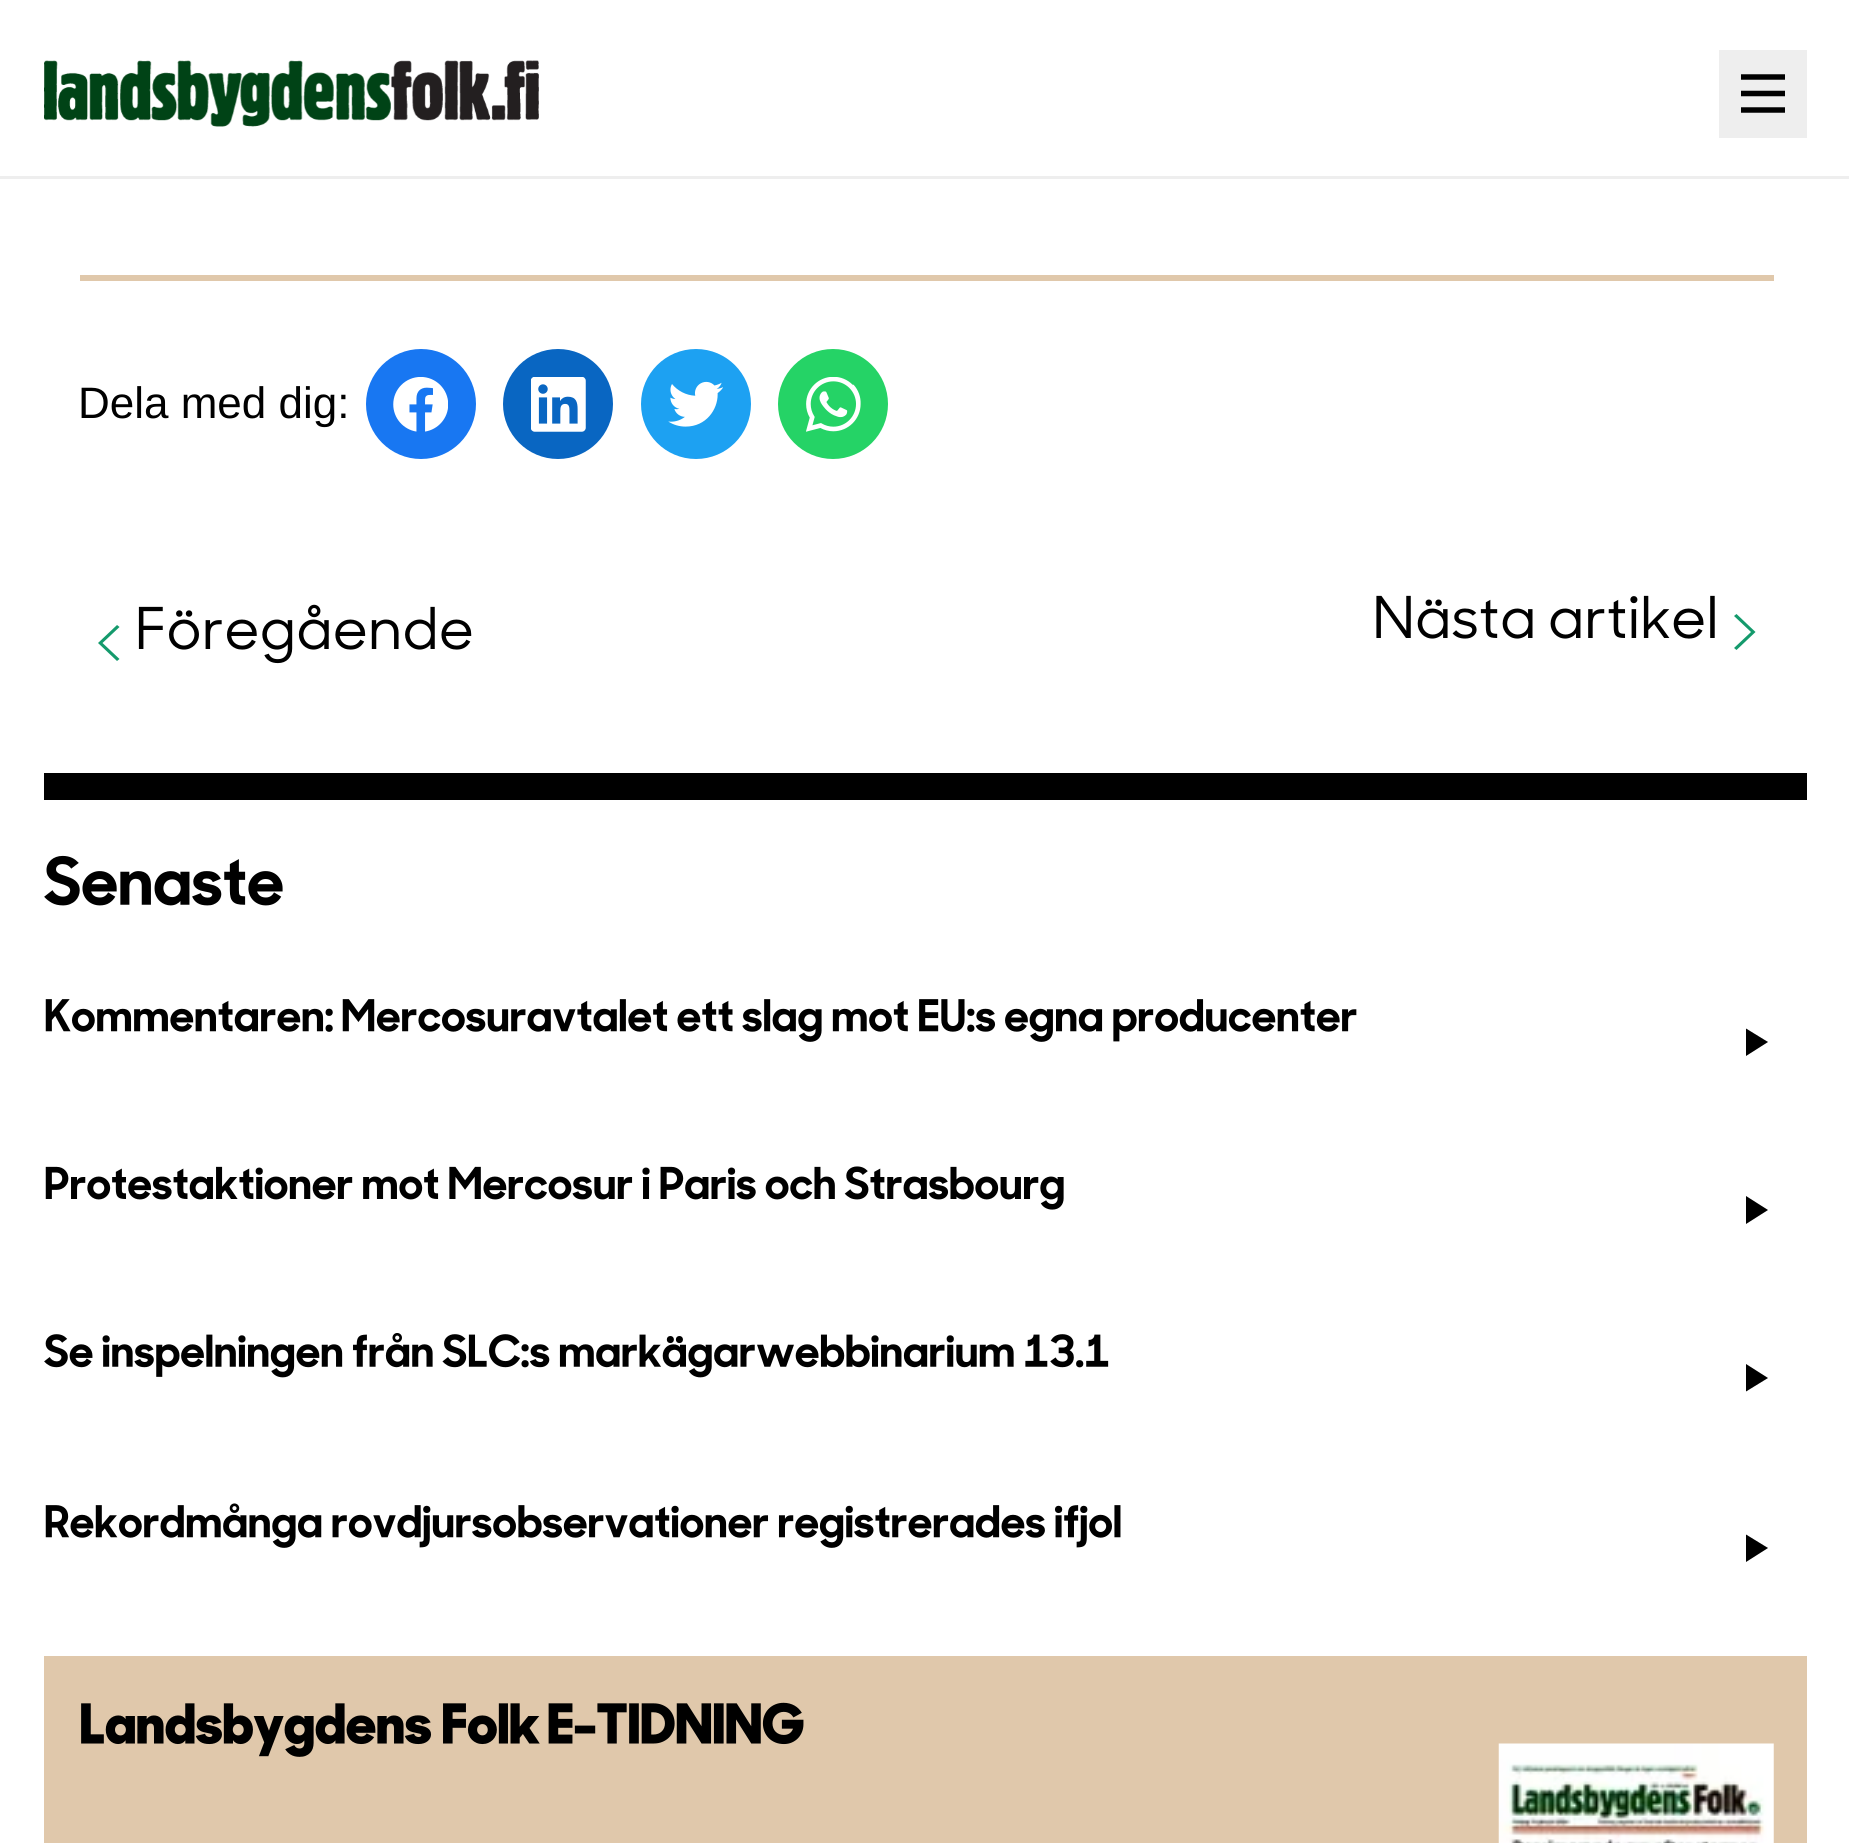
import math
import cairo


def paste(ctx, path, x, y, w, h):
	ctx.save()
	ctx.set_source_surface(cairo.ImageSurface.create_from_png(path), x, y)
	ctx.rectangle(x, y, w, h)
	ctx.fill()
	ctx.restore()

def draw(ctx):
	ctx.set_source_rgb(1, 1, 1)
	ctx.paint()
	ctx.set_source_rgb(0.933, 0.933, 0.933)
	ctx.rectangle(0, 176, 1849, 3)
	ctx.fill()
	paste(ctx, 'media/1.png', 44, 60, 495, 67)
	ctx.rectangle(1719, 50, 88, 88)
	ctx.fill()
	ctx.new_path()
	ctx.move_to(1741, 77)
	ctx.line_to(1785, 77)
	ctx.move_to(1741, 93.5)
	ctx.line_to(1785, 93.5)
	ctx.move_to(1741, 110)
	ctx.line_to(1785, 110)
	ctx.set_source_rgb(0, 0, 0)
	ctx.set_line_width(5.5)
	ctx.set_line_join(cairo.LINE_JOIN_ROUND)
	ctx.stroke()
	ctx.set_source_rgb(0.878, 0.784, 0.671)
	ctx.rectangle(80, 275, 1694, 6)
	ctx.fill()
	ctx.select_font_face('Liberation Sans')
	ctx.set_font_size(44)
	ctx.set_source_rgb(0, 0, 0)
	ctx.move_to(78, 418)
	ctx.show_text('Dela med dig:')
	ctx.set_source_rgb(0.094, 0.467, 0.949)
	ctx.new_path()
	ctx.arc(421, 404, 55, 0, 2 * math.pi)
	ctx.fill()
	paste(ctx, 'media/2.png', 393, 377, 55, 55)
	ctx.set_source_rgb(0.039, 0.4, 0.761)
	ctx.arc(558, 404, 55, 0, 2 * math.pi)
	ctx.fill()
	paste(ctx, 'media/3.png', 531, 377, 55, 55)
	ctx.set_source_rgb(0.114, 0.631, 0.949)
	ctx.arc(696, 404, 55, 0, 2 * math.pi)
	ctx.fill()
	paste(ctx, 'media/4.png', 668, 381, 55, 46)
	ctx.set_source_rgb(0.145, 0.827, 0.4)
	ctx.arc(833, 404, 55, 0, 2 * math.pi)
	ctx.fill()
	paste(ctx, 'media/5.png', 806, 377, 55, 55)
	ctx.set_source_rgb(0.082, 0.604, 0.424)
	ctx.new_path()
	ctx.move_to(119.5, 627)
	ctx.line_to(117, 625)
	ctx.line_to(98, 643)
	ctx.line_to(117, 661)
	ctx.line_to(119.5, 659)
	ctx.line_to(102.5, 643)
	ctx.close_path()
	ctx.fill()
	paste(ctx, 'media/6.png', 138, 604, 334, 60)
	paste(ctx, 'media/7.png', 1376, 595, 339, 44)
	ctx.new_path()
	ctx.move_to(1734, 616)
	ctx.line_to(1736.5, 614)
	ctx.line_to(1755.5, 632)
	ctx.line_to(1736.5, 650)
	ctx.line_to(1734, 648)
	ctx.line_to(1751, 632)
	ctx.close_path()
	ctx.fill()
	ctx.set_source_rgb(0, 0, 0)
	ctx.rectangle(44, 773, 1763, 27)
	ctx.fill()
	paste(ctx, 'media/8.png', 44, 855, 239, 51)
	paste(ctx, 'media/9.png', 45, 999, 288, 33)
	paste(ctx, 'media/10.png', 342, 999, 1015, 43)
	ctx.new_path()
	ctx.move_to(1746, 1028.5)
	ctx.line_to(1746, 1056)
	ctx.line_to(1768, 1042)
	ctx.close_path()
	ctx.fill()
	paste(ctx, 'media/11.png', 45, 1166, 1019, 44)
	ctx.new_path()
	ctx.move_to(1746, 1196)
	ctx.line_to(1746, 1224)
	ctx.line_to(1768, 1210)
	ctx.close_path()
	ctx.fill()
	paste(ctx, 'media/12.png', 44, 1333, 1065, 45)
	ctx.new_path()
	ctx.move_to(1746, 1364)
	ctx.line_to(1746, 1391.5)
	ctx.line_to(1768, 1378)
	ctx.close_path()
	ctx.fill()
	paste(ctx, 'media/13.png', 45, 1503, 1076, 45)
	ctx.new_path()
	ctx.move_to(1746, 1534.5)
	ctx.line_to(1746, 1562)
	ctx.line_to(1768, 1548)
	ctx.close_path()
	ctx.fill()
	ctx.set_source_rgb(0.878, 0.784, 0.671)
	ctx.rectangle(44, 1656, 1763, 187)
	ctx.fill()
	paste(ctx, 'media/14.png', 81, 1703, 459, 54)
	paste(ctx, 'media/15.png', 548, 1702, 256, 43)
	paste(ctx, 'media/16.png', 1498, 1743, 276, 100)


surface = cairo.ImageSurface(cairo.FORMAT_RGB24, 1849, 1843)
ctx = cairo.Context(surface)
options = cairo.FontOptions()
options.set_hint_metrics(cairo.HINT_METRICS_OFF)
options.set_hint_style(cairo.HINT_STYLE_NONE)
ctx.set_font_options(options)
ctx.set_miter_limit(4)
draw(ctx)
surface.write_to_png('image.png')
